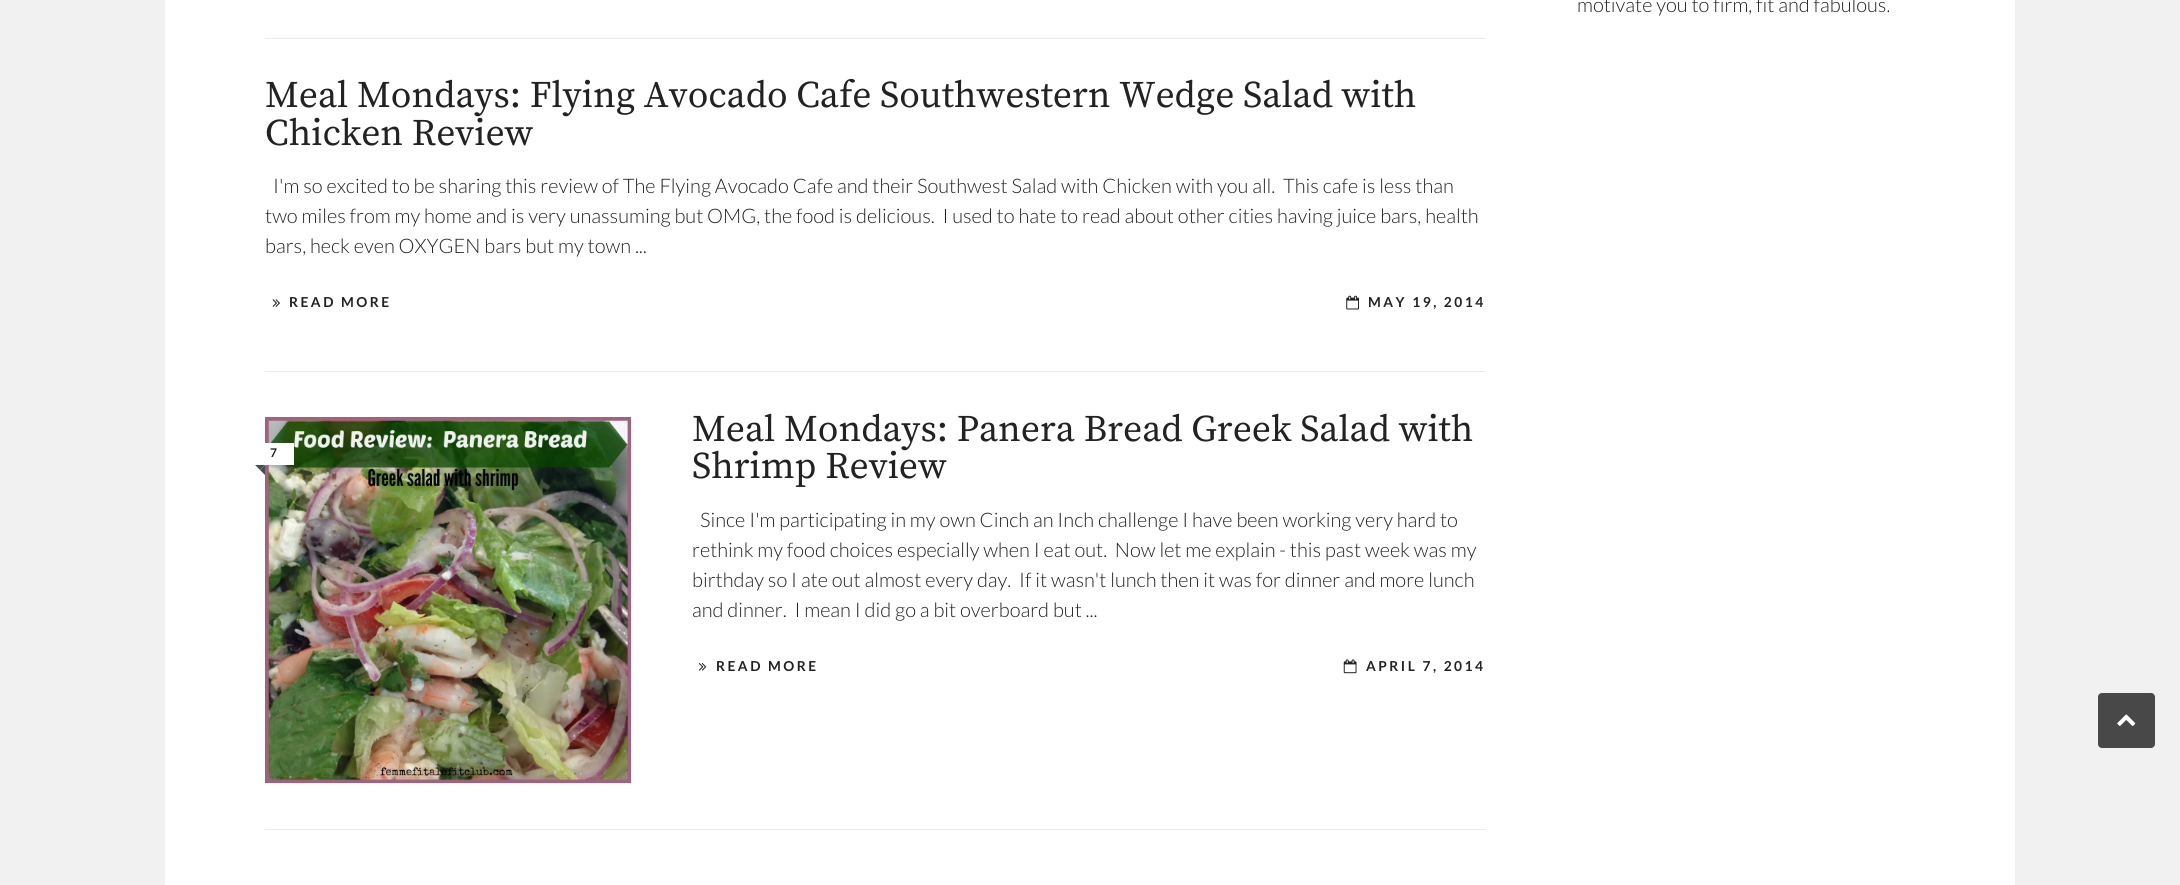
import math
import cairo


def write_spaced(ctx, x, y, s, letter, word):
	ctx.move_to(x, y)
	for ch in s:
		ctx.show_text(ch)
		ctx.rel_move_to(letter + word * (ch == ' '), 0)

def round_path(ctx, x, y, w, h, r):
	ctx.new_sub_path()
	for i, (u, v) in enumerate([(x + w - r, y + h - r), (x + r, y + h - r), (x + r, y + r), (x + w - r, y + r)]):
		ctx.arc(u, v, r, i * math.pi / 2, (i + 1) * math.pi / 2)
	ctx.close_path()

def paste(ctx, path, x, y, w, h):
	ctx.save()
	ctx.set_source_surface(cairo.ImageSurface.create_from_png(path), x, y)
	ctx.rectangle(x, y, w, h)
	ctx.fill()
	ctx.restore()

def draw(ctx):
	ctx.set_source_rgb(0.945, 0.945, 0.945)
	ctx.paint()
	ctx.set_source_rgb(1, 1, 1)
	ctx.rectangle(165, 0, 1850, 885)
	ctx.fill()
	ctx.select_font_face('Lato Light')
	ctx.set_font_size(20)
	ctx.set_source_rgb(0.133, 0.133, 0.133)
	ctx.move_to(1577, 12)
	ctx.show_text('motivate you to firm, fit and fabulous.')
	ctx.set_source_rgb(0.918, 0.918, 0.918)
	ctx.rectangle(265, 38, 1221, 1)
	ctx.fill()
	ctx.rectangle(265, 371, 1221, 1)
	ctx.fill()
	ctx.select_font_face('Source Serif Pro')
	ctx.set_font_size(37.5)
	ctx.set_source_rgb(0.133, 0.133, 0.133)
	ctx.move_to(265, 107)
	ctx.show_text('Meal Mondays: Flying Avocado Cafe Southwestern Wedge Salad with')
	ctx.move_to(265, 145)
	ctx.show_text('Chicken Review')
	ctx.select_font_face('Lato Light')
	ctx.set_font_size(20)
	for x, y, s in [
		(273, 193, 'I\'m so excited to be sharing this review of The Flying Avocado Cafe and their Southwest Salad with Chicken with you all.  This cafe is less than'),
		(265, 223, 'two miles from my home and is very unassuming but OMG, the food is delicious.  I used to hate to read about other cities having juice bars, health'),
		(265, 253, 'bars, heck even OXYGEN bars but my town ...'),
	]:
		ctx.move_to(x, y)
		ctx.show_text(s)
	paste(ctx, 'media/1.png', 272, 299, 8, 8)
	ctx.select_font_face('Lato', cairo.FONT_SLANT_NORMAL, cairo.FONT_WEIGHT_BOLD)
	ctx.set_font_size(13.75)
	write_spaced(ctx, 289, 307, 'READ MORE', 2.5, 0)
	paste(ctx, 'media/2.png', 1346, 295, 13, 15)
	write_spaced(ctx, 1368, 307, 'MAY 19, 2014', 2.5, 0)
	ctx.set_source_rgb(0.918, 0.918, 0.918)
	ctx.rectangle(265, 829, 1221, 1)
	ctx.fill()
	paste(ctx, 'media/3.png', 265, 417, 367, 367)
	ctx.set_source_rgb(1, 1, 1)
	ctx.rectangle(265, 443, 29, 22)
	ctx.fill()
	ctx.set_font_size(12)
	ctx.set_source_rgb(0.133, 0.133, 0.133)
	ctx.move_to(270, 457)
	ctx.show_text('7')
	ctx.set_source_rgb(0.271, 0.306, 0.329)
	ctx.new_path()
	ctx.move_to(255, 465)
	ctx.line_to(265, 465)
	ctx.line_to(260, 470)
	ctx.close_path()
	ctx.fill()
	ctx.new_path()
	ctx.move_to(265, 465)
	ctx.line_to(265, 475)
	ctx.line_to(260, 470)
	ctx.close_path()
	ctx.fill()
	ctx.select_font_face('Source Serif Pro')
	ctx.set_font_size(37.5)
	ctx.set_source_rgb(0.133, 0.133, 0.133)
	ctx.move_to(692, 441)
	ctx.show_text('Meal Mondays: Panera Bread Greek Salad with')
	ctx.move_to(692, 478)
	ctx.show_text('Shrimp Review')
	ctx.select_font_face('Lato Light')
	ctx.set_font_size(20)
	for x, y, s in [
		(700, 527, 'Since I\'m participating in my own Cinch an Inch challenge I have been working very hard to'),
		(692, 557, 'rethink my food choices especially when I eat out.  Now let me explain - this past week was my'),
		(692, 587, 'birthday so I ate out almost every day.  If it wasn\'t lunch then it was for dinner and more lunch'),
		(692, 617, 'and dinner.  I mean I did go a bit overboard but ...'),
	]:
		ctx.move_to(x, y)
		ctx.show_text(s)
	paste(ctx, 'media/4.png', 698, 663, 9, 8)
	ctx.select_font_face('Lato', cairo.FONT_SLANT_NORMAL, cairo.FONT_WEIGHT_BOLD)
	ctx.set_font_size(13.75)
	write_spaced(ctx, 716, 671, 'READ MORE', 2.5, 0)
	paste(ctx, 'media/5.png', 1343, 659, 14, 15)
	write_spaced(ctx, 1366, 671, 'APRIL 7, 2014', 2.5, 0)
	ctx.set_source_rgb(0.282, 0.282, 0.282)
	round_path(ctx, 2098, 693, 57, 55, 4)
	ctx.fill()
	paste(ctx, 'media/6.png', 2117, 714, 19, 12)


surface = cairo.ImageSurface(cairo.FORMAT_RGB24, 2180, 885)
ctx = cairo.Context(surface)
options = cairo.FontOptions()
options.set_hint_metrics(cairo.HINT_METRICS_OFF)
options.set_hint_style(cairo.HINT_STYLE_NONE)
ctx.set_font_options(options)
ctx.set_miter_limit(4)
draw(ctx)
surface.write_to_png('image.png')
